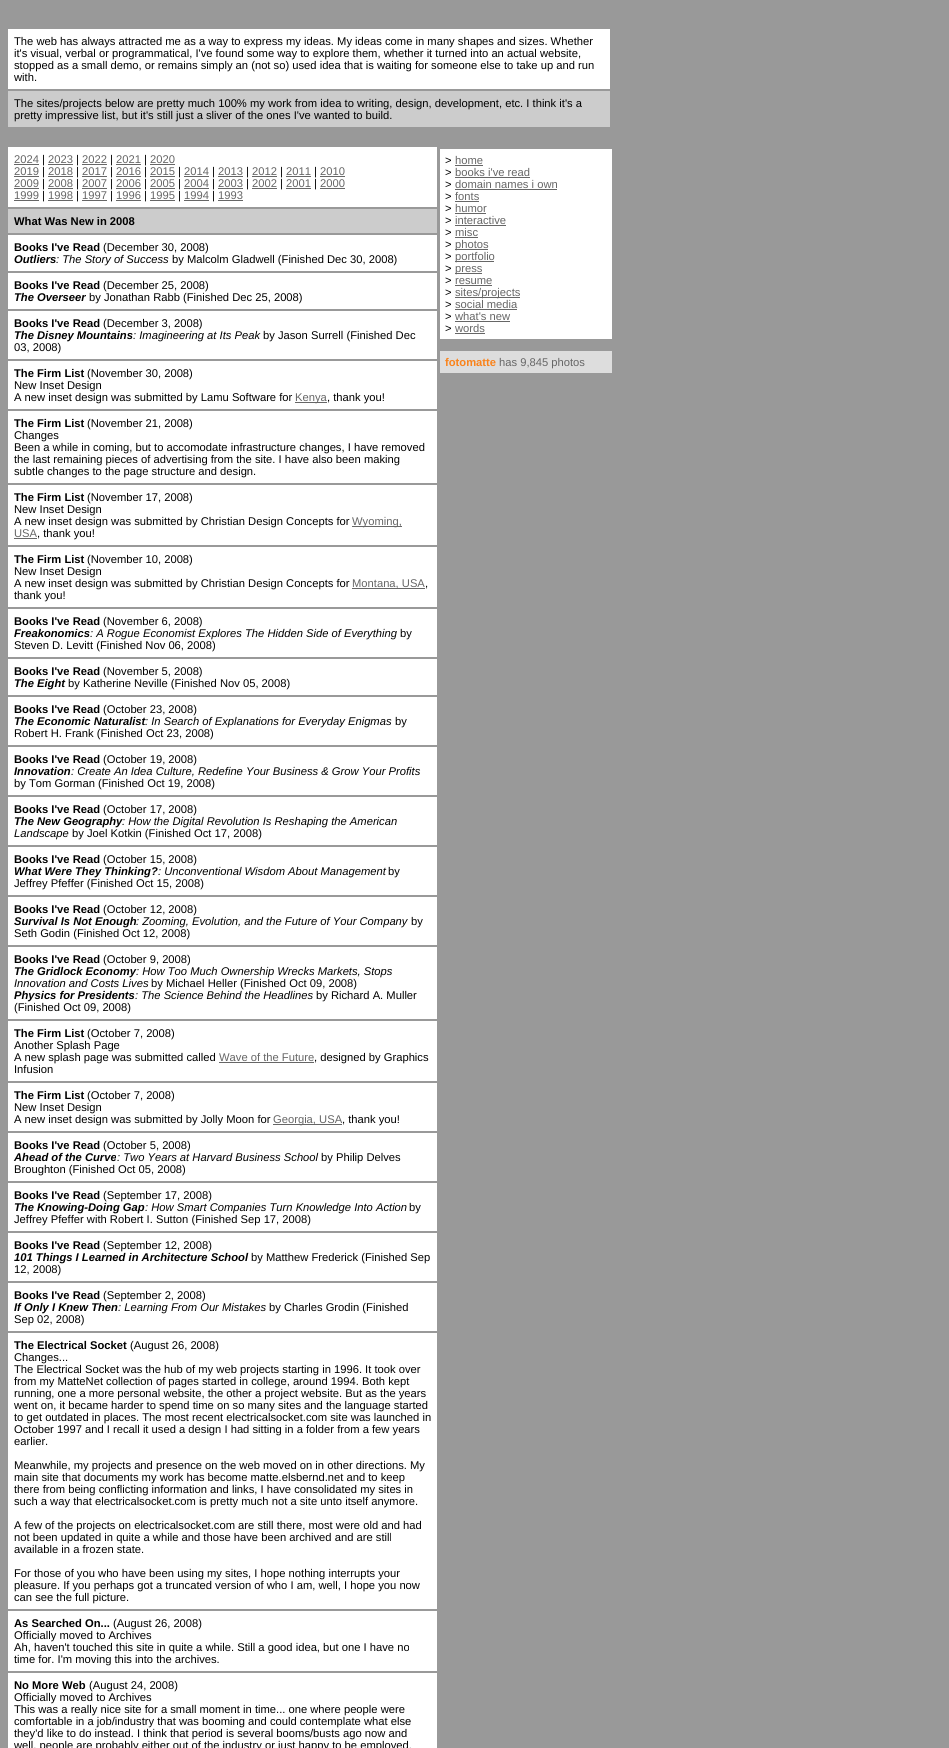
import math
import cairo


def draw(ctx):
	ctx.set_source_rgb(0.6, 0.6, 0.6)
	ctx.paint()
	ctx.set_source_rgb(1, 1, 1)
	ctx.rectangle(8, 29, 602, 60)
	ctx.fill()
	ctx.select_font_face('Liberation Sans')
	ctx.set_font_size(11.2)
	ctx.set_source_rgb(0, 0, 0)
	for x, y, s in [
		(14, 45, 'The web has always attracted me as a way to express my ideas. My ideas come in many shapes and sizes. Whether'),
		(14, 57, 'it\'s visual, verbal or programmatical, I\'ve found some way to explore them, whether it turned into an actual website,'),
		(14, 69, 'stopped as a small demo, or remains simply an (not so) used idea that is waiting for someone else to take up and run'),
		(14, 81, 'with.'),
	]:
		ctx.move_to(x, y)
		ctx.show_text(s)
	ctx.set_source_rgb(0.8, 0.8, 0.8)
	ctx.rectangle(8, 91, 602, 36)
	ctx.fill()
	ctx.set_source_rgb(0, 0, 0)
	ctx.move_to(14, 107)
	ctx.show_text('The sites/projects below are pretty much 100% my work from idea to writing, design, development, etc. I think it\'s a')
	ctx.move_to(14, 119)
	ctx.show_text('pretty impressive list, but it\'s still just a sliver of the ones I\'ve wanted to build.')
	ctx.set_source_rgb(1, 1, 1)
	ctx.rectangle(8, 147, 429, 60)
	ctx.fill()
	ctx.set_source_rgb(0.4, 0.4, 0.4)
	ctx.move_to(14, 163)
	ctx.show_text('2024')
	ctx.rectangle(14, 164, 25, 1)
	ctx.fill()
	ctx.set_source_rgb(0, 0, 0)
	ctx.move_to(42, 163)
	ctx.show_text('|')
	ctx.set_source_rgb(0.4, 0.4, 0.4)
	ctx.move_to(48, 163)
	ctx.show_text('2023')
	ctx.rectangle(48, 164, 25, 1)
	ctx.fill()
	ctx.set_source_rgb(0, 0, 0)
	ctx.move_to(76, 163)
	ctx.show_text('|')
	ctx.set_source_rgb(0.4, 0.4, 0.4)
	ctx.move_to(82, 163)
	ctx.show_text('2022')
	ctx.rectangle(82, 164, 25, 1)
	ctx.fill()
	ctx.set_source_rgb(0, 0, 0)
	ctx.move_to(110, 163)
	ctx.show_text('|')
	ctx.set_source_rgb(0.4, 0.4, 0.4)
	ctx.move_to(116, 163)
	ctx.show_text('2021')
	ctx.rectangle(116, 164, 25, 1)
	ctx.fill()
	ctx.set_source_rgb(0, 0, 0)
	ctx.move_to(144, 163)
	ctx.show_text('|')
	ctx.set_source_rgb(0.4, 0.4, 0.4)
	ctx.move_to(150, 163)
	ctx.show_text('2020')
	ctx.rectangle(150, 164, 25, 1)
	ctx.fill()
	ctx.move_to(14, 175)
	ctx.show_text('2019')
	ctx.rectangle(14, 176, 25, 1)
	ctx.fill()
	ctx.set_source_rgb(0, 0, 0)
	ctx.move_to(42, 175)
	ctx.show_text('|')
	ctx.set_source_rgb(0.4, 0.4, 0.4)
	ctx.move_to(48, 175)
	ctx.show_text('2018')
	ctx.rectangle(48, 176, 25, 1)
	ctx.fill()
	ctx.set_source_rgb(0, 0, 0)
	ctx.move_to(76, 175)
	ctx.show_text('|')
	ctx.set_source_rgb(0.4, 0.4, 0.4)
	ctx.move_to(82, 175)
	ctx.show_text('2017')
	ctx.rectangle(82, 176, 25, 1)
	ctx.fill()
	ctx.set_source_rgb(0, 0, 0)
	ctx.move_to(110, 175)
	ctx.show_text('|')
	ctx.set_source_rgb(0.4, 0.4, 0.4)
	ctx.move_to(116, 175)
	ctx.show_text('2016')
	ctx.rectangle(116, 176, 25, 1)
	ctx.fill()
	ctx.set_source_rgb(0, 0, 0)
	ctx.move_to(144, 175)
	ctx.show_text('|')
	ctx.set_source_rgb(0.4, 0.4, 0.4)
	ctx.move_to(150, 175)
	ctx.show_text('2015')
	ctx.rectangle(150, 176, 25, 1)
	ctx.fill()
	ctx.set_source_rgb(0, 0, 0)
	ctx.move_to(178, 175)
	ctx.show_text('|')
	ctx.set_source_rgb(0.4, 0.4, 0.4)
	ctx.move_to(184, 175)
	ctx.show_text('2014')
	ctx.rectangle(184, 176, 25, 1)
	ctx.fill()
	ctx.set_source_rgb(0, 0, 0)
	ctx.move_to(212, 175)
	ctx.show_text('|')
	ctx.set_source_rgb(0.4, 0.4, 0.4)
	ctx.move_to(218, 175)
	ctx.show_text('2013')
	ctx.rectangle(218, 176, 25, 1)
	ctx.fill()
	ctx.set_source_rgb(0, 0, 0)
	ctx.move_to(246, 175)
	ctx.show_text('|')
	ctx.set_source_rgb(0.4, 0.4, 0.4)
	ctx.move_to(252, 175)
	ctx.show_text('2012')
	ctx.rectangle(252, 176, 25, 1)
	ctx.fill()
	ctx.set_source_rgb(0, 0, 0)
	ctx.move_to(280, 175)
	ctx.show_text('|')
	ctx.set_source_rgb(0.4, 0.4, 0.4)
	ctx.move_to(286, 175)
	ctx.show_text('2011')
	ctx.rectangle(286, 176, 25, 1)
	ctx.fill()
	ctx.set_source_rgb(0, 0, 0)
	ctx.move_to(314, 175)
	ctx.show_text('|')
	ctx.set_source_rgb(0.4, 0.4, 0.4)
	ctx.move_to(320, 175)
	ctx.show_text('2010')
	ctx.rectangle(320, 176, 25, 1)
	ctx.fill()
	ctx.move_to(14, 187)
	ctx.show_text('2009')
	ctx.rectangle(14, 188, 25, 1)
	ctx.fill()
	ctx.set_source_rgb(0, 0, 0)
	ctx.move_to(42, 187)
	ctx.show_text('|')
	ctx.set_source_rgb(0.4, 0.4, 0.4)
	ctx.move_to(48, 187)
	ctx.show_text('2008')
	ctx.rectangle(48, 188, 25, 1)
	ctx.fill()
	ctx.set_source_rgb(0, 0, 0)
	ctx.move_to(76, 187)
	ctx.show_text('|')
	ctx.set_source_rgb(0.4, 0.4, 0.4)
	ctx.move_to(82, 187)
	ctx.show_text('2007')
	ctx.rectangle(82, 188, 25, 1)
	ctx.fill()
	ctx.set_source_rgb(0, 0, 0)
	ctx.move_to(110, 187)
	ctx.show_text('|')
	ctx.set_source_rgb(0.4, 0.4, 0.4)
	ctx.move_to(116, 187)
	ctx.show_text('2006')
	ctx.rectangle(116, 188, 25, 1)
	ctx.fill()
	ctx.set_source_rgb(0, 0, 0)
	ctx.move_to(144, 187)
	ctx.show_text('|')
	ctx.set_source_rgb(0.4, 0.4, 0.4)
	ctx.move_to(150, 187)
	ctx.show_text('2005')
	ctx.rectangle(150, 188, 25, 1)
	ctx.fill()
	ctx.set_source_rgb(0, 0, 0)
	ctx.move_to(178, 187)
	ctx.show_text('|')
	ctx.set_source_rgb(0.4, 0.4, 0.4)
	ctx.move_to(184, 187)
	ctx.show_text('2004')
	ctx.rectangle(184, 188, 25, 1)
	ctx.fill()
	ctx.set_source_rgb(0, 0, 0)
	ctx.move_to(212, 187)
	ctx.show_text('|')
	ctx.set_source_rgb(0.4, 0.4, 0.4)
	ctx.move_to(218, 187)
	ctx.show_text('2003')
	ctx.rectangle(218, 188, 25, 1)
	ctx.fill()
	ctx.set_source_rgb(0, 0, 0)
	ctx.move_to(246, 187)
	ctx.show_text('|')
	ctx.set_source_rgb(0.4, 0.4, 0.4)
	ctx.move_to(252, 187)
	ctx.show_text('2002')
	ctx.rectangle(252, 188, 25, 1)
	ctx.fill()
	ctx.set_source_rgb(0, 0, 0)
	ctx.move_to(280, 187)
	ctx.show_text('|')
	ctx.set_source_rgb(0.4, 0.4, 0.4)
	ctx.move_to(286, 187)
	ctx.show_text('2001')
	ctx.rectangle(286, 188, 25, 1)
	ctx.fill()
	ctx.set_source_rgb(0, 0, 0)
	ctx.move_to(314, 187)
	ctx.show_text('|')
	ctx.set_source_rgb(0.4, 0.4, 0.4)
	ctx.move_to(320, 187)
	ctx.show_text('2000')
	ctx.rectangle(320, 188, 25, 1)
	ctx.fill()
	ctx.move_to(14, 199)
	ctx.show_text('1999')
	ctx.rectangle(14, 200, 25, 1)
	ctx.fill()
	ctx.set_source_rgb(0, 0, 0)
	ctx.move_to(42, 199)
	ctx.show_text('|')
	ctx.set_source_rgb(0.4, 0.4, 0.4)
	ctx.move_to(48, 199)
	ctx.show_text('1998')
	ctx.rectangle(48, 200, 25, 1)
	ctx.fill()
	ctx.set_source_rgb(0, 0, 0)
	ctx.move_to(76, 199)
	ctx.show_text('|')
	ctx.set_source_rgb(0.4, 0.4, 0.4)
	ctx.move_to(82, 199)
	ctx.show_text('1997')
	ctx.rectangle(82, 200, 25, 1)
	ctx.fill()
	ctx.set_source_rgb(0, 0, 0)
	ctx.move_to(110, 199)
	ctx.show_text('|')
	ctx.set_source_rgb(0.4, 0.4, 0.4)
	ctx.move_to(116, 199)
	ctx.show_text('1996')
	ctx.rectangle(116, 200, 25, 1)
	ctx.fill()
	ctx.set_source_rgb(0, 0, 0)
	ctx.move_to(144, 199)
	ctx.show_text('|')
	ctx.set_source_rgb(0.4, 0.4, 0.4)
	ctx.move_to(150, 199)
	ctx.show_text('1995')
	ctx.rectangle(150, 200, 25, 1)
	ctx.fill()
	ctx.set_source_rgb(0, 0, 0)
	ctx.move_to(178, 199)
	ctx.show_text('|')
	ctx.set_source_rgb(0.4, 0.4, 0.4)
	ctx.move_to(184, 199)
	ctx.show_text('1994')
	ctx.rectangle(184, 200, 25, 1)
	ctx.fill()
	ctx.set_source_rgb(0, 0, 0)
	ctx.move_to(212, 199)
	ctx.show_text('|')
	ctx.set_source_rgb(0.4, 0.4, 0.4)
	ctx.move_to(218, 199)
	ctx.show_text('1993')
	ctx.rectangle(218, 200, 25, 1)
	ctx.fill()
	ctx.set_source_rgb(0.8, 0.8, 0.8)
	ctx.rectangle(8, 209, 429, 24)
	ctx.fill()
	ctx.select_font_face('Liberation Sans', cairo.FONT_SLANT_NORMAL, cairo.FONT_WEIGHT_BOLD)
	ctx.set_source_rgb(0, 0, 0)
	ctx.move_to(14, 225)
	ctx.show_text('What Was New in 2008')
	ctx.set_source_rgb(1, 1, 1)
	ctx.rectangle(8, 235, 429, 36)
	ctx.fill()
	ctx.set_source_rgb(0, 0, 0)
	ctx.move_to(14, 251)
	ctx.show_text('Books I\'ve Read')
	ctx.select_font_face('Liberation Sans')
	ctx.move_to(103, 251)
	ctx.show_text('(December 30, 2008)')
	ctx.select_font_face('Liberation Sans', cairo.FONT_SLANT_ITALIC, cairo.FONT_WEIGHT_BOLD)
	ctx.move_to(14, 263)
	ctx.show_text('Outliers')
	ctx.select_font_face('Liberation Sans', cairo.FONT_SLANT_ITALIC)
	ctx.move_to(56, 263)
	ctx.show_text(': The Story of Success')
	ctx.select_font_face('Liberation Sans')
	ctx.move_to(172, 263)
	ctx.show_text('by Malcolm Gladwell (Finished Dec 30, 2008)')
	ctx.set_source_rgb(1, 1, 1)
	ctx.rectangle(8, 273, 429, 36)
	ctx.fill()
	ctx.select_font_face('Liberation Sans', cairo.FONT_SLANT_NORMAL, cairo.FONT_WEIGHT_BOLD)
	ctx.set_source_rgb(0, 0, 0)
	ctx.move_to(14, 289)
	ctx.show_text('Books I\'ve Read')
	ctx.select_font_face('Liberation Sans')
	ctx.move_to(103, 289)
	ctx.show_text('(December 25, 2008)')
	ctx.select_font_face('Liberation Sans', cairo.FONT_SLANT_ITALIC, cairo.FONT_WEIGHT_BOLD)
	ctx.move_to(14, 301)
	ctx.show_text('The Overseer')
	ctx.select_font_face('Liberation Sans')
	ctx.move_to(89, 301)
	ctx.show_text('by Jonathan Rabb (Finished Dec 25, 2008)')
	ctx.set_source_rgb(1, 1, 1)
	ctx.rectangle(8, 311, 429, 48)
	ctx.fill()
	ctx.select_font_face('Liberation Sans', cairo.FONT_SLANT_NORMAL, cairo.FONT_WEIGHT_BOLD)
	ctx.set_source_rgb(0, 0, 0)
	ctx.move_to(14, 327)
	ctx.show_text('Books I\'ve Read')
	ctx.select_font_face('Liberation Sans')
	ctx.move_to(103, 327)
	ctx.show_text('(December 3, 2008)')
	ctx.select_font_face('Liberation Sans', cairo.FONT_SLANT_ITALIC, cairo.FONT_WEIGHT_BOLD)
	ctx.move_to(14, 339)
	ctx.show_text('The Disney Mountains')
	ctx.select_font_face('Liberation Sans', cairo.FONT_SLANT_ITALIC)
	ctx.move_to(133, 339)
	ctx.show_text(': Imagineering at Its Peak')
	ctx.select_font_face('Liberation Sans')
	ctx.move_to(263, 339)
	ctx.show_text('by Jason Surrell (Finished Dec')
	ctx.move_to(14, 351)
	ctx.show_text('03, 2008)')
	ctx.set_source_rgb(1, 1, 1)
	ctx.rectangle(8, 361, 429, 48)
	ctx.fill()
	ctx.select_font_face('Liberation Sans', cairo.FONT_SLANT_NORMAL, cairo.FONT_WEIGHT_BOLD)
	ctx.set_source_rgb(0, 0, 0)
	ctx.move_to(14, 377)
	ctx.show_text('The Firm List')
	ctx.select_font_face('Liberation Sans')
	for x, y, s in [
		(87, 377, '(November 30, 2008)'),
		(14, 389, 'New Inset Design'),
		(14, 401, 'A new inset design was submitted by Lamu Software for'),
	]:
		ctx.move_to(x, y)
		ctx.show_text(s)
	ctx.set_source_rgb(0.4, 0.4, 0.4)
	ctx.rectangle(295, 402, 32, 1)
	ctx.fill()
	ctx.move_to(295, 401)
	ctx.show_text('Kenya')
	ctx.set_source_rgb(0, 0, 0)
	ctx.move_to(327, 401)
	ctx.show_text(', thank you!')
	ctx.set_source_rgb(1, 1, 1)
	ctx.rectangle(8, 411, 429, 72)
	ctx.fill()
	ctx.select_font_face('Liberation Sans', cairo.FONT_SLANT_NORMAL, cairo.FONT_WEIGHT_BOLD)
	ctx.set_source_rgb(0, 0, 0)
	ctx.move_to(14, 427)
	ctx.show_text('The Firm List')
	ctx.select_font_face('Liberation Sans')
	for x, y, s in [
		(87, 427, '(November 21, 2008)'),
		(14, 439, 'Changes'),
		(14, 451, 'Been a while in coming, but to accomodate infrastructure changes, I have removed'),
		(14, 463, 'the last remaining pieces of advertising from the site. I have also been making'),
		(14, 475, 'subtle changes to the page structure and design.'),
	]:
		ctx.move_to(x, y)
		ctx.show_text(s)
	ctx.set_source_rgb(1, 1, 1)
	ctx.rectangle(8, 485, 429, 60)
	ctx.fill()
	ctx.select_font_face('Liberation Sans', cairo.FONT_SLANT_NORMAL, cairo.FONT_WEIGHT_BOLD)
	ctx.set_source_rgb(0, 0, 0)
	ctx.move_to(14, 501)
	ctx.show_text('The Firm List')
	ctx.select_font_face('Liberation Sans')
	for x, y, s in [
		(87, 501, '(November 17, 2008)'),
		(14, 513, 'New Inset Design'),
		(14, 525, 'A new inset design was submitted by Christian Design Concepts for'),
	]:
		ctx.move_to(x, y)
		ctx.show_text(s)
	ctx.set_source_rgb(0.4, 0.4, 0.4)
	ctx.rectangle(352, 526, 50, 1)
	ctx.fill()
	ctx.move_to(352, 525)
	ctx.show_text('Wyoming,')
	ctx.move_to(14, 537)
	ctx.show_text('USA')
	ctx.rectangle(14, 538, 23, 1)
	ctx.fill()
	ctx.set_source_rgb(0, 0, 0)
	ctx.move_to(37, 537)
	ctx.show_text(', thank you!')
	ctx.set_source_rgb(1, 1, 1)
	ctx.rectangle(8, 547, 429, 60)
	ctx.fill()
	ctx.select_font_face('Liberation Sans', cairo.FONT_SLANT_NORMAL, cairo.FONT_WEIGHT_BOLD)
	ctx.set_source_rgb(0, 0, 0)
	ctx.move_to(14, 563)
	ctx.show_text('The Firm List')
	ctx.select_font_face('Liberation Sans')
	for x, y, s in [
		(87, 563, '(November 10, 2008)'),
		(14, 575, 'New Inset Design'),
		(14, 587, 'A new inset design was submitted by Christian Design Concepts for'),
	]:
		ctx.move_to(x, y)
		ctx.show_text(s)
	ctx.set_source_rgb(0.4, 0.4, 0.4)
	ctx.rectangle(352, 588, 73, 1)
	ctx.fill()
	ctx.move_to(352, 587)
	ctx.show_text('Montana, USA')
	ctx.set_source_rgb(0, 0, 0)
	ctx.move_to(425, 587)
	ctx.show_text(',')
	ctx.move_to(14, 599)
	ctx.show_text('thank you!')
	ctx.set_source_rgb(1, 1, 1)
	ctx.rectangle(8, 609, 429, 48)
	ctx.fill()
	ctx.select_font_face('Liberation Sans', cairo.FONT_SLANT_NORMAL, cairo.FONT_WEIGHT_BOLD)
	ctx.set_source_rgb(0, 0, 0)
	ctx.move_to(14, 625)
	ctx.show_text('Books I\'ve Read')
	ctx.select_font_face('Liberation Sans')
	ctx.move_to(103, 625)
	ctx.show_text('(November 6, 2008)')
	ctx.select_font_face('Liberation Sans', cairo.FONT_SLANT_ITALIC, cairo.FONT_WEIGHT_BOLD)
	ctx.move_to(14, 637)
	ctx.show_text('Freakonomics')
	ctx.select_font_face('Liberation Sans', cairo.FONT_SLANT_ITALIC)
	ctx.move_to(90, 637)
	ctx.show_text(': A Rogue Economist Explores The Hidden Side of Everything')
	ctx.select_font_face('Liberation Sans')
	ctx.move_to(400, 637)
	ctx.show_text('by')
	ctx.move_to(14, 649)
	ctx.show_text('Steven D. Levitt (Finished Nov 06, 2008)')
	ctx.set_source_rgb(1, 1, 1)
	ctx.rectangle(8, 659, 429, 36)
	ctx.fill()
	ctx.select_font_face('Liberation Sans', cairo.FONT_SLANT_NORMAL, cairo.FONT_WEIGHT_BOLD)
	ctx.set_source_rgb(0, 0, 0)
	ctx.move_to(14, 675)
	ctx.show_text('Books I\'ve Read')
	ctx.select_font_face('Liberation Sans')
	ctx.move_to(103, 675)
	ctx.show_text('(November 5, 2008)')
	ctx.select_font_face('Liberation Sans', cairo.FONT_SLANT_ITALIC, cairo.FONT_WEIGHT_BOLD)
	ctx.move_to(14, 687)
	ctx.show_text('The Eight')
	ctx.select_font_face('Liberation Sans')
	ctx.move_to(68, 687)
	ctx.show_text('by Katherine Neville (Finished Nov 05, 2008)')
	ctx.set_source_rgb(1, 1, 1)
	ctx.rectangle(8, 697, 429, 48)
	ctx.fill()
	ctx.select_font_face('Liberation Sans', cairo.FONT_SLANT_NORMAL, cairo.FONT_WEIGHT_BOLD)
	ctx.set_source_rgb(0, 0, 0)
	ctx.move_to(14, 713)
	ctx.show_text('Books I\'ve Read')
	ctx.select_font_face('Liberation Sans')
	ctx.move_to(103, 713)
	ctx.show_text('(October 23, 2008)')
	ctx.select_font_face('Liberation Sans', cairo.FONT_SLANT_ITALIC, cairo.FONT_WEIGHT_BOLD)
	ctx.move_to(14, 725)
	ctx.show_text('The Economic Naturalist')
	ctx.select_font_face('Liberation Sans', cairo.FONT_SLANT_ITALIC)
	ctx.move_to(145, 725)
	ctx.show_text(': In Search of Explanations for Everyday Enigmas')
	ctx.select_font_face('Liberation Sans')
	ctx.move_to(395, 725)
	ctx.show_text('by')
	ctx.move_to(14, 737)
	ctx.show_text('Robert H. Frank (Finished Oct 23, 2008)')
	ctx.set_source_rgb(1, 1, 1)
	ctx.rectangle(8, 747, 429, 48)
	ctx.fill()
	ctx.select_font_face('Liberation Sans', cairo.FONT_SLANT_NORMAL, cairo.FONT_WEIGHT_BOLD)
	ctx.set_source_rgb(0, 0, 0)
	ctx.move_to(14, 763)
	ctx.show_text('Books I\'ve Read')
	ctx.select_font_face('Liberation Sans')
	ctx.move_to(103, 763)
	ctx.show_text('(October 19, 2008)')
	ctx.select_font_face('Liberation Sans', cairo.FONT_SLANT_ITALIC, cairo.FONT_WEIGHT_BOLD)
	ctx.move_to(14, 775)
	ctx.show_text('Innovation')
	ctx.select_font_face('Liberation Sans', cairo.FONT_SLANT_ITALIC)
	ctx.move_to(71, 775)
	ctx.show_text(': Create An Idea Culture, Redefine Your Business & Grow Your Profits')
	ctx.select_font_face('Liberation Sans')
	ctx.move_to(14, 787)
	ctx.show_text('by Tom Gorman (Finished Oct 19, 2008)')
	ctx.set_source_rgb(1, 1, 1)
	ctx.rectangle(8, 797, 429, 48)
	ctx.fill()
	ctx.select_font_face('Liberation Sans', cairo.FONT_SLANT_NORMAL, cairo.FONT_WEIGHT_BOLD)
	ctx.set_source_rgb(0, 0, 0)
	ctx.move_to(14, 813)
	ctx.show_text('Books I\'ve Read')
	ctx.select_font_face('Liberation Sans')
	ctx.move_to(103, 813)
	ctx.show_text('(October 17, 2008)')
	ctx.select_font_face('Liberation Sans', cairo.FONT_SLANT_ITALIC, cairo.FONT_WEIGHT_BOLD)
	ctx.move_to(14, 825)
	ctx.show_text('The New Geography')
	ctx.select_font_face('Liberation Sans', cairo.FONT_SLANT_ITALIC)
	ctx.move_to(122, 825)
	ctx.show_text(': How the Digital Revolution Is Reshaping the American')
	ctx.move_to(14, 837)
	ctx.show_text('Landscape')
	ctx.select_font_face('Liberation Sans')
	ctx.move_to(72, 837)
	ctx.show_text('by Joel Kotkin (Finished Oct 17, 2008)')
	ctx.set_source_rgb(1, 1, 1)
	ctx.rectangle(8, 847, 429, 48)
	ctx.fill()
	ctx.select_font_face('Liberation Sans', cairo.FONT_SLANT_NORMAL, cairo.FONT_WEIGHT_BOLD)
	ctx.set_source_rgb(0, 0, 0)
	ctx.move_to(14, 863)
	ctx.show_text('Books I\'ve Read')
	ctx.select_font_face('Liberation Sans')
	ctx.move_to(103, 863)
	ctx.show_text('(October 15, 2008)')
	ctx.select_font_face('Liberation Sans', cairo.FONT_SLANT_ITALIC, cairo.FONT_WEIGHT_BOLD)
	ctx.move_to(14, 875)
	ctx.show_text('What Were They Thinking?')
	ctx.select_font_face('Liberation Sans', cairo.FONT_SLANT_ITALIC)
	ctx.move_to(158, 875)
	ctx.show_text(': Unconventional Wisdom About Management')
	ctx.select_font_face('Liberation Sans')
	ctx.move_to(388, 875)
	ctx.show_text('by')
	ctx.move_to(14, 887)
	ctx.show_text('Jeffrey Pfeffer (Finished Oct 15, 2008)')
	ctx.set_source_rgb(1, 1, 1)
	ctx.rectangle(8, 897, 429, 48)
	ctx.fill()
	ctx.select_font_face('Liberation Sans', cairo.FONT_SLANT_NORMAL, cairo.FONT_WEIGHT_BOLD)
	ctx.set_source_rgb(0, 0, 0)
	ctx.move_to(14, 913)
	ctx.show_text('Books I\'ve Read')
	ctx.select_font_face('Liberation Sans')
	ctx.move_to(103, 913)
	ctx.show_text('(October 12, 2008)')
	ctx.select_font_face('Liberation Sans', cairo.FONT_SLANT_ITALIC, cairo.FONT_WEIGHT_BOLD)
	ctx.move_to(14, 925)
	ctx.show_text('Survival Is Not Enough')
	ctx.select_font_face('Liberation Sans', cairo.FONT_SLANT_ITALIC)
	ctx.move_to(136, 925)
	ctx.show_text(': Zooming, Evolution, and the Future of Your Company')
	ctx.select_font_face('Liberation Sans')
	ctx.move_to(411, 925)
	ctx.show_text('by')
	ctx.move_to(14, 937)
	ctx.show_text('Seth Godin (Finished Oct 12, 2008)')
	ctx.set_source_rgb(1, 1, 1)
	ctx.rectangle(8, 947, 429, 72)
	ctx.fill()
	ctx.select_font_face('Liberation Sans', cairo.FONT_SLANT_NORMAL, cairo.FONT_WEIGHT_BOLD)
	ctx.set_source_rgb(0, 0, 0)
	ctx.move_to(14, 963)
	ctx.show_text('Books I\'ve Read')
	ctx.select_font_face('Liberation Sans')
	ctx.move_to(103, 963)
	ctx.show_text('(October 9, 2008)')
	ctx.select_font_face('Liberation Sans', cairo.FONT_SLANT_ITALIC, cairo.FONT_WEIGHT_BOLD)
	ctx.move_to(14, 975)
	ctx.show_text('The Gridlock Economy')
	ctx.select_font_face('Liberation Sans', cairo.FONT_SLANT_ITALIC)
	ctx.move_to(136, 975)
	ctx.show_text(': How Too Much Ownership Wrecks Markets, Stops')
	ctx.move_to(14, 987)
	ctx.show_text('Innovation and Costs Lives')
	ctx.select_font_face('Liberation Sans')
	ctx.move_to(151, 987)
	ctx.show_text('by Michael Heller (Finished Oct 09, 2008)')
	ctx.select_font_face('Liberation Sans', cairo.FONT_SLANT_ITALIC, cairo.FONT_WEIGHT_BOLD)
	ctx.move_to(14, 999)
	ctx.show_text('Physics for Presidents')
	ctx.select_font_face('Liberation Sans', cairo.FONT_SLANT_ITALIC)
	ctx.move_to(135, 999)
	ctx.show_text(': The Science Behind the Headlines')
	ctx.select_font_face('Liberation Sans')
	ctx.move_to(316, 999)
	ctx.show_text('by Richard A. Muller')
	ctx.move_to(14, 1011)
	ctx.show_text('(Finished Oct 09, 2008)')
	ctx.set_source_rgb(1, 1, 1)
	ctx.rectangle(8, 1021, 429, 60)
	ctx.fill()
	ctx.select_font_face('Liberation Sans', cairo.FONT_SLANT_NORMAL, cairo.FONT_WEIGHT_BOLD)
	ctx.set_source_rgb(0, 0, 0)
	ctx.move_to(14, 1037)
	ctx.show_text('The Firm List')
	ctx.select_font_face('Liberation Sans')
	for x, y, s in [
		(87, 1037, '(October 7, 2008)'),
		(14, 1049, 'Another Splash Page'),
		(14, 1061, 'A new splash page was submitted called'),
	]:
		ctx.move_to(x, y)
		ctx.show_text(s)
	ctx.set_source_rgb(0.4, 0.4, 0.4)
	ctx.move_to(219, 1061)
	ctx.show_text('Wave of the Future')
	ctx.rectangle(219, 1062, 95, 1)
	ctx.fill()
	ctx.set_source_rgb(0, 0, 0)
	ctx.move_to(314, 1061)
	ctx.show_text(', designed by Graphics')
	ctx.move_to(14, 1073)
	ctx.show_text('Infusion')
	ctx.set_source_rgb(1, 1, 1)
	ctx.rectangle(8, 1083, 429, 48)
	ctx.fill()
	ctx.select_font_face('Liberation Sans', cairo.FONT_SLANT_NORMAL, cairo.FONT_WEIGHT_BOLD)
	ctx.set_source_rgb(0, 0, 0)
	ctx.move_to(14, 1099)
	ctx.show_text('The Firm List')
	ctx.select_font_face('Liberation Sans')
	for x, y, s in [
		(87, 1099, '(October 7, 2008)'),
		(14, 1111, 'New Inset Design'),
		(14, 1123, 'A new inset design was submitted by Jolly Moon for'),
	]:
		ctx.move_to(x, y)
		ctx.show_text(s)
	ctx.set_source_rgb(0.4, 0.4, 0.4)
	ctx.rectangle(273, 1124, 69, 1)
	ctx.fill()
	ctx.move_to(273, 1123)
	ctx.show_text('Georgia, USA')
	ctx.set_source_rgb(0, 0, 0)
	ctx.move_to(342, 1123)
	ctx.show_text(', thank you!')
	ctx.set_source_rgb(1, 1, 1)
	ctx.rectangle(8, 1133, 429, 48)
	ctx.fill()
	ctx.select_font_face('Liberation Sans', cairo.FONT_SLANT_NORMAL, cairo.FONT_WEIGHT_BOLD)
	ctx.set_source_rgb(0, 0, 0)
	ctx.move_to(14, 1149)
	ctx.show_text('Books I\'ve Read')
	ctx.select_font_face('Liberation Sans')
	ctx.move_to(103, 1149)
	ctx.show_text('(October 5, 2008)')
	ctx.select_font_face('Liberation Sans', cairo.FONT_SLANT_ITALIC, cairo.FONT_WEIGHT_BOLD)
	ctx.move_to(14, 1161)
	ctx.show_text('Ahead of the Curve')
	ctx.select_font_face('Liberation Sans', cairo.FONT_SLANT_ITALIC)
	ctx.move_to(117, 1161)
	ctx.show_text(': Two Years at Harvard Business School')
	ctx.select_font_face('Liberation Sans')
	ctx.move_to(321, 1161)
	ctx.show_text('by Philip Delves')
	ctx.move_to(14, 1173)
	ctx.show_text('Broughton (Finished Oct 05, 2008)')
	ctx.set_source_rgb(1, 1, 1)
	ctx.rectangle(8, 1183, 429, 48)
	ctx.fill()
	ctx.select_font_face('Liberation Sans', cairo.FONT_SLANT_NORMAL, cairo.FONT_WEIGHT_BOLD)
	ctx.set_source_rgb(0, 0, 0)
	ctx.move_to(14, 1199)
	ctx.show_text('Books I\'ve Read')
	ctx.select_font_face('Liberation Sans')
	ctx.move_to(103, 1199)
	ctx.show_text('(September 17, 2008)')
	ctx.select_font_face('Liberation Sans', cairo.FONT_SLANT_ITALIC, cairo.FONT_WEIGHT_BOLD)
	ctx.move_to(14, 1211)
	ctx.show_text('The Knowing-Doing Gap')
	ctx.select_font_face('Liberation Sans', cairo.FONT_SLANT_ITALIC)
	ctx.move_to(145, 1211)
	ctx.show_text(': How Smart Companies Turn Knowledge Into Action')
	ctx.select_font_face('Liberation Sans')
	ctx.move_to(409, 1211)
	ctx.show_text('by')
	ctx.move_to(14, 1223)
	ctx.show_text('Jeffrey Pfeffer with Robert I. Sutton (Finished Sep 17, 2008)')
	ctx.set_source_rgb(1, 1, 1)
	ctx.rectangle(8, 1233, 429, 48)
	ctx.fill()
	ctx.select_font_face('Liberation Sans', cairo.FONT_SLANT_NORMAL, cairo.FONT_WEIGHT_BOLD)
	ctx.set_source_rgb(0, 0, 0)
	ctx.move_to(14, 1249)
	ctx.show_text('Books I\'ve Read')
	ctx.select_font_face('Liberation Sans')
	ctx.move_to(103, 1249)
	ctx.show_text('(September 12, 2008)')
	ctx.select_font_face('Liberation Sans', cairo.FONT_SLANT_ITALIC, cairo.FONT_WEIGHT_BOLD)
	ctx.move_to(14, 1261)
	ctx.show_text('101 Things I Learned in Architecture School')
	ctx.select_font_face('Liberation Sans')
	ctx.move_to(251, 1261)
	ctx.show_text('by Matthew Frederick (Finished Sep')
	ctx.move_to(14, 1273)
	ctx.show_text('12, 2008)')
	ctx.set_source_rgb(1, 1, 1)
	ctx.rectangle(8, 1283, 429, 48)
	ctx.fill()
	ctx.select_font_face('Liberation Sans', cairo.FONT_SLANT_NORMAL, cairo.FONT_WEIGHT_BOLD)
	ctx.set_source_rgb(0, 0, 0)
	ctx.move_to(14, 1299)
	ctx.show_text('Books I\'ve Read')
	ctx.select_font_face('Liberation Sans')
	ctx.move_to(103, 1299)
	ctx.show_text('(September 2, 2008)')
	ctx.select_font_face('Liberation Sans', cairo.FONT_SLANT_ITALIC, cairo.FONT_WEIGHT_BOLD)
	ctx.move_to(14, 1311)
	ctx.show_text('If Only I Knew Then')
	ctx.select_font_face('Liberation Sans', cairo.FONT_SLANT_ITALIC)
	ctx.move_to(118, 1311)
	ctx.show_text(': Learning From Our Mistakes')
	ctx.select_font_face('Liberation Sans')
	ctx.move_to(269, 1311)
	ctx.show_text('by Charles Grodin (Finished')
	ctx.move_to(14, 1323)
	ctx.show_text('Sep 02, 2008)')
	ctx.set_source_rgb(1, 1, 1)
	ctx.rectangle(8, 1333, 429, 276)
	ctx.fill()
	ctx.select_font_face('Liberation Sans', cairo.FONT_SLANT_NORMAL, cairo.FONT_WEIGHT_BOLD)
	ctx.set_source_rgb(0, 0, 0)
	ctx.move_to(14, 1349)
	ctx.show_text('The Electrical Socket')
	ctx.select_font_face('Liberation Sans')
	for x, y, s in [
		(130, 1349, '(August 26, 2008)'),
		(14, 1361, 'Changes...'),
		(14, 1373, 'The Electrical Socket was the hub of my web projects starting in 1996. It took over'),
		(14, 1385, 'from my MatteNet collection of pages started in college, around 1994. Both kept'),
		(14, 1397, 'running, one a more personal website, the other a project website. But as the years'),
		(14, 1409, 'went on, it became harder to spend time on so many sites and the language started'),
		(14, 1421, 'to get outdated in places. The most recent electricalsocket.com site was launched in'),
		(14, 1433, 'October 1997 and I recall it used a design I had sitting in a folder from a few years'),
		(14, 1445, 'earlier.'),
		(14, 1469, 'Meanwhile, my projects and presence on the web moved on in other directions. My'),
		(14, 1481, 'main site that documents my work has become matte.elsbernd.net and to keep'),
		(14, 1493, 'there from being conflicting information and links, I have consolidated my sites in'),
		(14, 1505, 'such a way that electricalsocket.com is pretty much not a site unto itself anymore.'),
		(14, 1529, 'A few of the projects on electricalsocket.com are still there, most were old and had'),
		(14, 1541, 'not been updated in quite a while and those have been archived and are still'),
		(14, 1553, 'available in a frozen state.'),
		(14, 1577, 'For those of you who have been using my sites, I hope nothing interrupts your'),
		(14, 1589, 'pleasure. If you perhaps got a truncated version of who I am, well, I hope you now'),
		(14, 1601, 'can see the full picture.'),
	]:
		ctx.move_to(x, y)
		ctx.show_text(s)
	ctx.set_source_rgb(1, 1, 1)
	ctx.rectangle(8, 1611, 429, 60)
	ctx.fill()
	ctx.select_font_face('Liberation Sans', cairo.FONT_SLANT_NORMAL, cairo.FONT_WEIGHT_BOLD)
	ctx.set_source_rgb(0, 0, 0)
	ctx.move_to(14, 1627)
	ctx.show_text('As Searched On...')
	ctx.select_font_face('Liberation Sans')
	for x, y, s in [
		(113, 1627, '(August 26, 2008)'),
		(14, 1639, 'Officially moved to Archives'),
		(14, 1651, 'Ah, haven\'t touched this site in quite a while. Still a good idea, but one I have no'),
		(14, 1663, 'time for. I\'m moving this into the archives.'),
	]:
		ctx.move_to(x, y)
		ctx.show_text(s)
	ctx.set_source_rgb(1, 1, 1)
	ctx.rectangle(8, 1673, 429, 75)
	ctx.fill()
	ctx.select_font_face('Liberation Sans', cairo.FONT_SLANT_NORMAL, cairo.FONT_WEIGHT_BOLD)
	ctx.set_source_rgb(0, 0, 0)
	ctx.move_to(14, 1689)
	ctx.show_text('No More Web')
	ctx.select_font_face('Liberation Sans')
	for x, y, s in [
		(89, 1689, '(August 24, 2008)'),
		(14, 1701, 'Officially moved to Archives'),
		(14, 1713, 'This was a really nice site for a small moment in time... one where people were'),
		(14, 1725, 'comfortable in a job/industry that was booming and could contemplate what else'),
		(14, 1737, 'they\'d like to do instead. I think that period is several booms/busts ago now and'),
		(14, 1749, 'well, people are probably either out of the industry or just happy to be employed.'),
	]:
		ctx.move_to(x, y)
		ctx.show_text(s)
	ctx.set_source_rgb(1, 1, 1)
	ctx.rectangle(440, 149, 172, 190)
	ctx.fill()
	ctx.set_source_rgb(0, 0, 0)
	ctx.move_to(445, 164)
	ctx.show_text('>')
	ctx.set_source_rgb(0.4, 0.4, 0.4)
	ctx.move_to(455, 164)
	ctx.show_text('home')
	ctx.rectangle(455, 165, 28, 1)
	ctx.fill()
	ctx.set_source_rgb(0, 0, 0)
	ctx.move_to(445, 176)
	ctx.show_text('>')
	ctx.set_source_rgb(0.4, 0.4, 0.4)
	ctx.move_to(455, 176)
	ctx.show_text('books i\'ve read')
	ctx.rectangle(455, 177, 75, 1)
	ctx.fill()
	ctx.set_source_rgb(0, 0, 0)
	ctx.move_to(445, 188)
	ctx.show_text('>')
	ctx.set_source_rgb(0.4, 0.4, 0.4)
	ctx.move_to(455, 188)
	ctx.show_text('domain names i own')
	ctx.rectangle(455, 189, 102, 1)
	ctx.fill()
	ctx.set_source_rgb(0, 0, 0)
	ctx.move_to(445, 200)
	ctx.show_text('>')
	ctx.set_source_rgb(0.4, 0.4, 0.4)
	ctx.move_to(455, 200)
	ctx.show_text('fonts')
	ctx.rectangle(455, 201, 24, 1)
	ctx.fill()
	ctx.set_source_rgb(0, 0, 0)
	ctx.move_to(445, 212)
	ctx.show_text('>')
	ctx.set_source_rgb(0.4, 0.4, 0.4)
	ctx.move_to(455, 212)
	ctx.show_text('humor')
	ctx.rectangle(455, 213, 31, 1)
	ctx.fill()
	ctx.set_source_rgb(0, 0, 0)
	ctx.move_to(445, 224)
	ctx.show_text('>')
	ctx.set_source_rgb(0.4, 0.4, 0.4)
	ctx.move_to(455, 224)
	ctx.show_text('interactive')
	ctx.rectangle(455, 225, 51, 1)
	ctx.fill()
	ctx.set_source_rgb(0, 0, 0)
	ctx.move_to(445, 236)
	ctx.show_text('>')
	ctx.set_source_rgb(0.4, 0.4, 0.4)
	ctx.move_to(455, 236)
	ctx.show_text('misc')
	ctx.rectangle(455, 237, 23, 1)
	ctx.fill()
	ctx.set_source_rgb(0, 0, 0)
	ctx.move_to(445, 248)
	ctx.show_text('>')
	ctx.set_source_rgb(0.4, 0.4, 0.4)
	ctx.rectangle(455, 249, 33, 1)
	ctx.fill()
	ctx.move_to(455, 248)
	ctx.show_text('photos')
	ctx.set_source_rgb(0, 0, 0)
	ctx.move_to(445, 260)
	ctx.show_text('>')
	ctx.set_source_rgb(0.4, 0.4, 0.4)
	ctx.rectangle(455, 261, 39, 1)
	ctx.fill()
	ctx.move_to(455, 260)
	ctx.show_text('portfolio')
	ctx.set_source_rgb(0, 0, 0)
	ctx.move_to(445, 272)
	ctx.show_text('>')
	ctx.set_source_rgb(0.4, 0.4, 0.4)
	ctx.rectangle(455, 273, 27, 1)
	ctx.fill()
	ctx.move_to(455, 272)
	ctx.show_text('press')
	ctx.set_source_rgb(0, 0, 0)
	ctx.move_to(445, 284)
	ctx.show_text('>')
	ctx.set_source_rgb(0.4, 0.4, 0.4)
	ctx.move_to(455, 284)
	ctx.show_text('resume')
	ctx.rectangle(455, 285, 37, 1)
	ctx.fill()
	ctx.set_source_rgb(0, 0, 0)
	ctx.move_to(445, 296)
	ctx.show_text('>')
	ctx.set_source_rgb(0.4, 0.4, 0.4)
	ctx.rectangle(455, 297, 65, 1)
	ctx.fill()
	ctx.move_to(455, 296)
	ctx.show_text('sites/projects')
	ctx.set_source_rgb(0, 0, 0)
	ctx.move_to(445, 308)
	ctx.show_text('>')
	ctx.set_source_rgb(0.4, 0.4, 0.4)
	ctx.move_to(455, 308)
	ctx.show_text('social media')
	ctx.rectangle(455, 309, 62, 1)
	ctx.fill()
	ctx.set_source_rgb(0, 0, 0)
	ctx.move_to(445, 320)
	ctx.show_text('>')
	ctx.set_source_rgb(0.4, 0.4, 0.4)
	ctx.move_to(455, 320)
	ctx.show_text('what\'s new')
	ctx.rectangle(455, 321, 55, 1)
	ctx.fill()
	ctx.set_source_rgb(0, 0, 0)
	ctx.move_to(445, 332)
	ctx.show_text('>')
	ctx.set_source_rgb(0.4, 0.4, 0.4)
	ctx.move_to(455, 332)
	ctx.show_text('words')
	ctx.rectangle(455, 333, 30, 1)
	ctx.fill()
	ctx.set_source_rgb(0.867, 0.867, 0.867)
	ctx.rectangle(440, 351, 172, 22)
	ctx.fill()
	ctx.select_font_face('Liberation Sans', cairo.FONT_SLANT_NORMAL, cairo.FONT_WEIGHT_BOLD)
	ctx.set_source_rgb(0.98, 0.514, 0.106)
	ctx.move_to(445, 366)
	ctx.show_text('fotomatte')
	ctx.select_font_face('Liberation Sans')
	ctx.set_source_rgb(0.4, 0.4, 0.4)
	ctx.move_to(499, 366)
	ctx.show_text('has 9,845 photos')


surface = cairo.ImageSurface(cairo.FORMAT_RGB24, 949, 1748)
ctx = cairo.Context(surface)
options = cairo.FontOptions()
options.set_hint_metrics(cairo.HINT_METRICS_OFF)
options.set_hint_style(cairo.HINT_STYLE_NONE)
ctx.set_font_options(options)
ctx.set_miter_limit(4)
draw(ctx)
surface.write_to_png('image.png')
